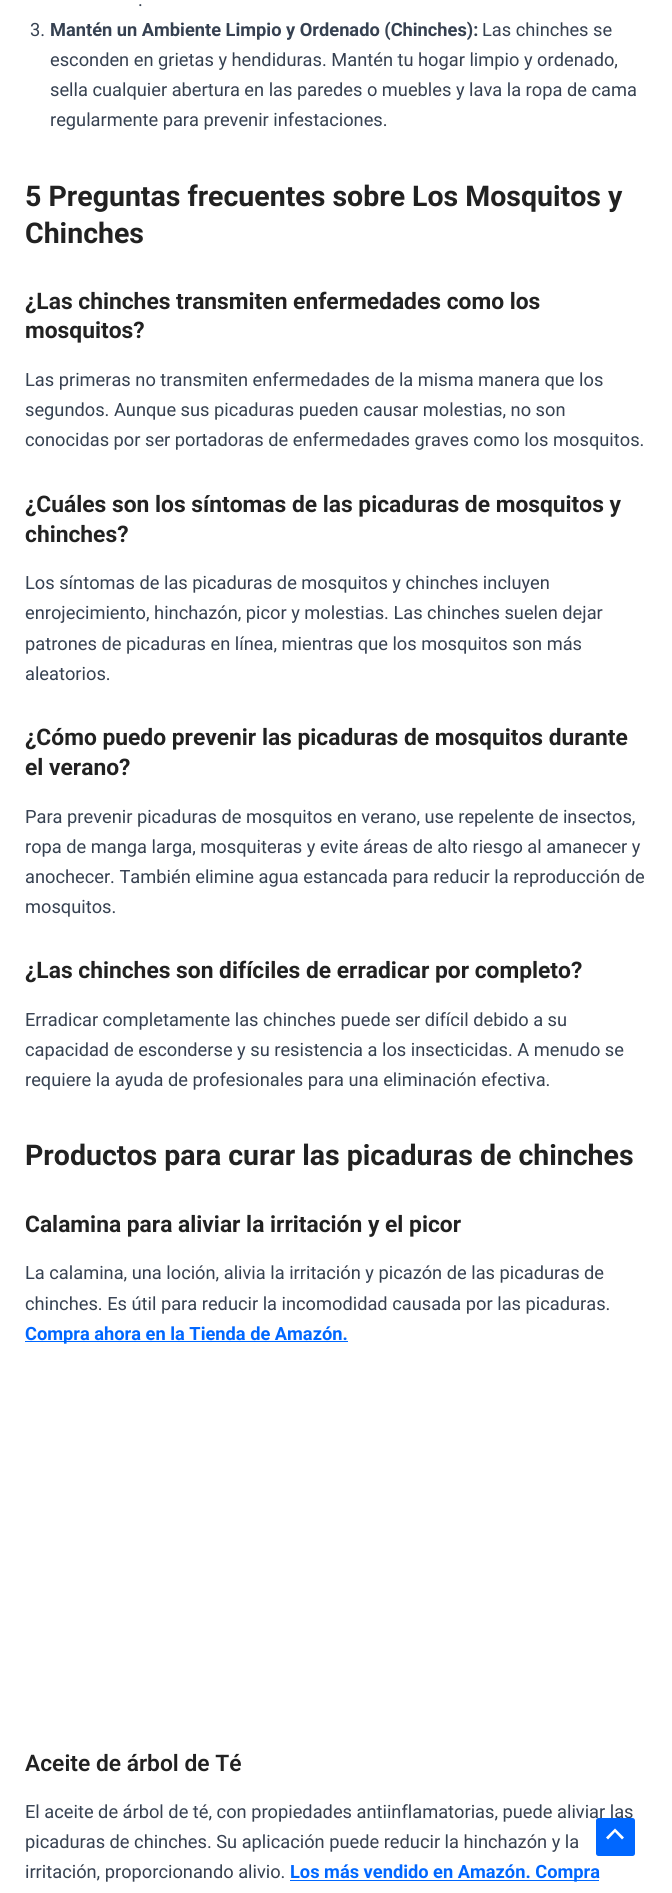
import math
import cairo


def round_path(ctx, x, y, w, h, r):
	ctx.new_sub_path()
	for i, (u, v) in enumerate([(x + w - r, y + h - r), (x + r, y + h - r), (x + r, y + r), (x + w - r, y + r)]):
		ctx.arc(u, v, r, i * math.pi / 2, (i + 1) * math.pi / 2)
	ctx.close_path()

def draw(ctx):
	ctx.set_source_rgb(1, 1, 1)
	ctx.paint()
	ctx.select_font_face('Roboto')
	ctx.set_font_size(18.25)
	ctx.set_source_rgb(0.212, 0.255, 0.318)
	ctx.move_to(138, 6)
	ctx.show_text('.')
	ctx.move_to(30, 36)
	ctx.show_text('3.')
	ctx.select_font_face('Roboto', cairo.FONT_SLANT_NORMAL, cairo.FONT_WEIGHT_BOLD)
	ctx.move_to(50, 36)
	ctx.show_text('Mantén un Ambiente Limpio y Ordenado (Chinches):')
	ctx.select_font_face('Roboto')
	for x, y, s in [
		(482, 36, 'Las chinches se'),
		(50, 66, 'esconden en grietas y hendiduras. Mantén tu hogar limpio y ordenado,'),
		(50, 96, 'sella cualquier abertura en las paredes o muebles y lava la ropa de cama'),
		(50, 126, 'regularmente para prevenir infestaciones.'),
	]:
		ctx.move_to(x, y)
		ctx.show_text(s)
	ctx.select_font_face('Roboto', cairo.FONT_SLANT_NORMAL, cairo.FONT_WEIGHT_BOLD)
	ctx.set_font_size(28.5)
	ctx.set_source_rgb(0.133, 0.133, 0.133)
	ctx.move_to(25, 206)
	ctx.show_text('5 Preguntas frecuentes sobre Los Mosquitos y')
	ctx.move_to(25, 243)
	ctx.show_text('Chinches')
	ctx.set_font_size(22.8)
	ctx.move_to(25, 309)
	ctx.show_text('¿Las chinches transmiten enfermedades como los')
	ctx.move_to(25, 338)
	ctx.show_text('mosquitos?')
	ctx.select_font_face('Roboto')
	ctx.set_font_size(18.25)
	ctx.set_source_rgb(0.212, 0.255, 0.318)
	for x, y, s in [
		(25, 386, 'Las primeras no transmiten enfermedades de la misma manera que los'),
		(25, 416, 'segundos. Aunque sus picaduras pueden causar molestias, no son'),
		(25, 446, 'conocidas por ser portadoras de enfermedades graves como los mosquitos.'),
	]:
		ctx.move_to(x, y)
		ctx.show_text(s)
	ctx.select_font_face('Roboto', cairo.FONT_SLANT_NORMAL, cairo.FONT_WEIGHT_BOLD)
	ctx.set_font_size(22.8)
	ctx.set_source_rgb(0.133, 0.133, 0.133)
	ctx.move_to(25, 512)
	ctx.show_text('¿Cuáles son los síntomas de las picaduras de mosquitos y')
	ctx.move_to(25, 542)
	ctx.show_text('chinches?')
	ctx.select_font_face('Roboto')
	ctx.set_font_size(18.25)
	ctx.set_source_rgb(0.212, 0.255, 0.318)
	for x, y, s in [
		(25, 589, 'Los síntomas de las picaduras de mosquitos y chinches incluyen'),
		(25, 619, 'enrojecimiento, hinchazón, picor y molestias. Las chinches suelen dejar'),
		(25, 650, 'patrones de picaduras en línea, mientras que los mosquitos son más'),
		(25, 680, 'aleatorios.'),
	]:
		ctx.move_to(x, y)
		ctx.show_text(s)
	ctx.select_font_face('Roboto', cairo.FONT_SLANT_NORMAL, cairo.FONT_WEIGHT_BOLD)
	ctx.set_font_size(22.8)
	ctx.set_source_rgb(0.133, 0.133, 0.133)
	ctx.move_to(25, 745)
	ctx.show_text('¿Cómo puedo prevenir las picaduras de mosquitos durante')
	ctx.move_to(25, 775)
	ctx.show_text('el verano?')
	ctx.select_font_face('Roboto')
	ctx.set_font_size(18.25)
	ctx.set_source_rgb(0.212, 0.255, 0.318)
	for x, y, s in [
		(25, 823, 'Para prevenir picaduras de mosquitos en verano, use repelente de insectos,'),
		(25, 853, 'ropa de manga larga, mosquiteras y evite áreas de alto riesgo al amanecer y'),
		(25, 883, 'anochecer. También elimine agua estancada para reducir la reproducción de'),
		(25, 913, 'mosquitos.'),
	]:
		ctx.move_to(x, y)
		ctx.show_text(s)
	ctx.select_font_face('Roboto', cairo.FONT_SLANT_NORMAL, cairo.FONT_WEIGHT_BOLD)
	ctx.set_font_size(22.8)
	ctx.set_source_rgb(0.133, 0.133, 0.133)
	ctx.move_to(25, 978)
	ctx.show_text('¿Las chinches son difíciles de erradicar por completo?')
	ctx.select_font_face('Roboto')
	ctx.set_font_size(18.25)
	ctx.set_source_rgb(0.212, 0.255, 0.318)
	for x, y, s in [
		(25, 1026, 'Erradicar completamente las chinches puede ser difícil debido a su'),
		(25, 1056, 'capacidad de esconderse y su resistencia a los insecticidas. A menudo se'),
		(25, 1086, 'requiere la ayuda de profesionales para una eliminación efectiva.'),
	]:
		ctx.move_to(x, y)
		ctx.show_text(s)
	ctx.select_font_face('Roboto', cairo.FONT_SLANT_NORMAL, cairo.FONT_WEIGHT_BOLD)
	ctx.set_font_size(28.5)
	ctx.set_source_rgb(0.133, 0.133, 0.133)
	ctx.move_to(25, 1165)
	ctx.show_text('Productos para curar las picaduras de chinches')
	ctx.set_font_size(22.8)
	ctx.move_to(25, 1232)
	ctx.show_text('Calamina para aliviar la irritación y el picor')
	ctx.select_font_face('Roboto')
	ctx.set_font_size(18.25)
	ctx.set_source_rgb(0.212, 0.255, 0.318)
	ctx.move_to(25, 1279)
	ctx.show_text('La calamina, una loción, alivia la irritación y picazón de las picaduras de')
	ctx.move_to(25, 1310)
	ctx.show_text('chinches. Es útil para reducir la incomodidad causada por las picaduras.')
	ctx.set_source_rgb(0, 0.404, 1)
	ctx.rectangle(25, 1341, 323, 1)
	ctx.fill()
	ctx.select_font_face('Roboto', cairo.FONT_SLANT_NORMAL, cairo.FONT_WEIGHT_BOLD)
	ctx.move_to(25, 1340)
	ctx.show_text('Compra ahora en la Tienda de Amazón.')
	ctx.select_font_face('Roboto SemiBold')
	ctx.set_font_size(22.8)
	ctx.set_source_rgb(0.133, 0.133, 0.133)
	ctx.move_to(25, 1771)
	ctx.show_text('Aceite de árbol de Té')
	ctx.select_font_face('Roboto')
	ctx.set_font_size(18.25)
	ctx.set_source_rgb(0.212, 0.255, 0.318)
	for x, y, s in [
		(25, 1818, 'El aceite de árbol de té, con propiedades antiinflamatorias, puede aliviar las'),
		(25, 1848, 'picaduras de chinches. Su aplicación puede reducir la hinchazón y la'),
		(25, 1878, 'irritación, proporcionando alivio.'),
	]:
		ctx.move_to(x, y)
		ctx.show_text(s)
	ctx.set_source_rgb(0, 0.404, 1)
	ctx.rectangle(290, 1880, 309, 1)
	ctx.fill()
	ctx.select_font_face('Roboto', cairo.FONT_SLANT_NORMAL, cairo.FONT_WEIGHT_BOLD)
	ctx.move_to(290, 1878)
	ctx.show_text('Los más vendido en Amazón. Compra')
	round_path(ctx, 596, 1818, 39, 38, 2.5)
	ctx.fill()
	ctx.set_source_rgb(1, 1, 1)
	ctx.new_path()
	ctx.move_to(624, 1837.5)
	ctx.line_to(615, 1828.5)
	ctx.line_to(606, 1837.5)
	ctx.line_to(608, 1839.5)
	ctx.line_to(615, 1832)
	ctx.line_to(622, 1839.5)
	ctx.close_path()
	ctx.fill()


surface = cairo.ImageSurface(cairo.FORMAT_RGB24, 672, 1893)
ctx = cairo.Context(surface)
options = cairo.FontOptions()
options.set_hint_metrics(cairo.HINT_METRICS_OFF)
options.set_hint_style(cairo.HINT_STYLE_NONE)
ctx.set_font_options(options)
ctx.set_miter_limit(4)
draw(ctx)
surface.write_to_png('image.png')
